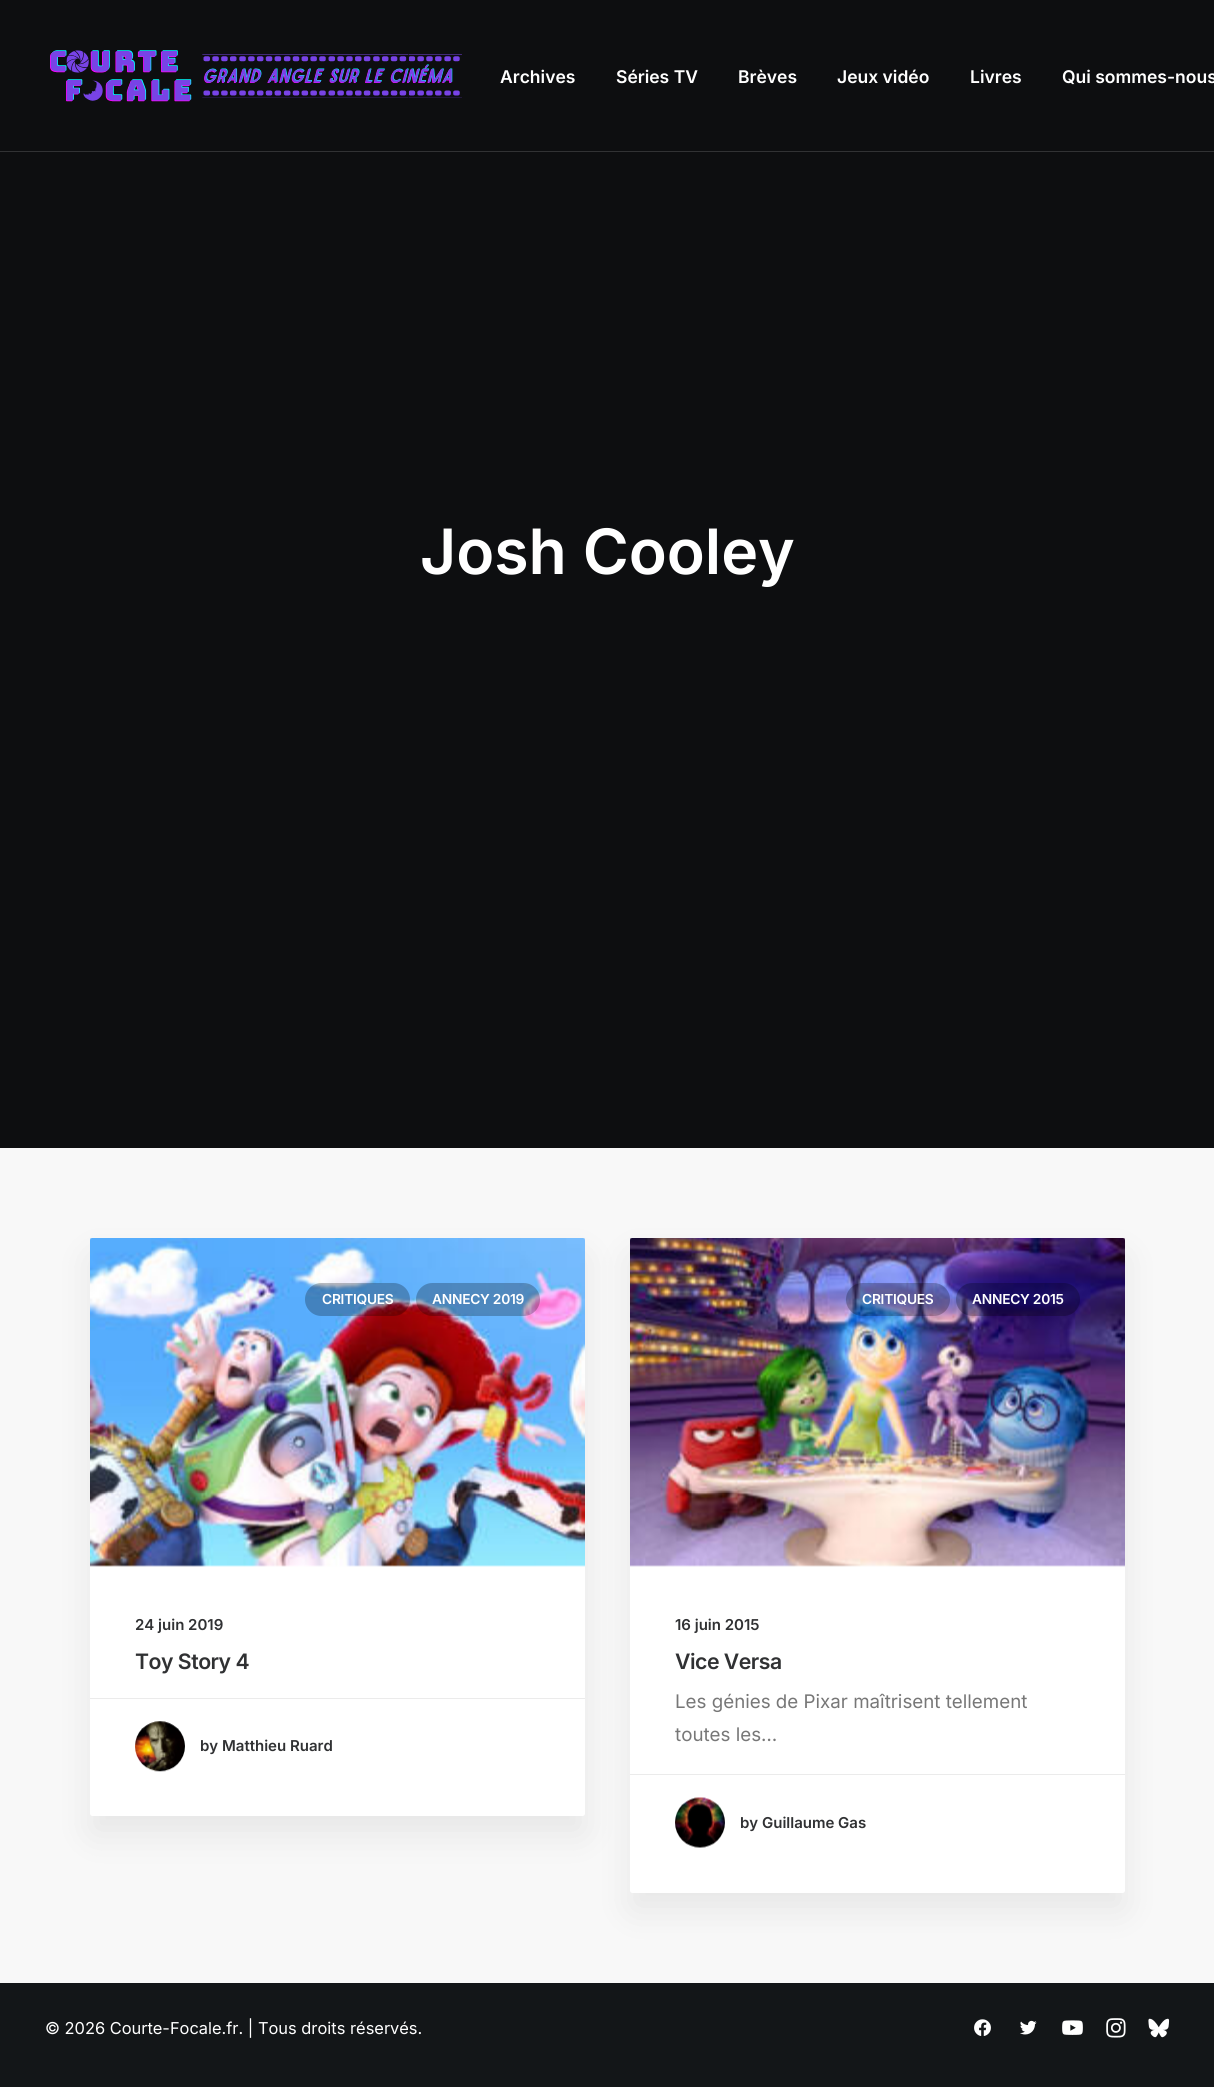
import math
import cairo


def write_spaced(ctx, x, y, s, letter, word):
	ctx.move_to(x, y)
	for ch in s:
		ctx.show_text(ch)
		ctx.rel_move_to(letter + word * (ch == ' '), 0)

def round_path(ctx, x, y, w, h, r):
	ctx.new_sub_path()
	for i, (u, v) in enumerate([(x + w - r, y + h - r), (x + r, y + h - r), (x + r, y + r), (x + w - r, y + r)]):
		ctx.arc(u, v, r, i * math.pi / 2, (i + 1) * math.pi / 2)
	ctx.close_path()

def blur_box(ctx, x, y, w, h, r, blur, alpha):
	ctx.push_group_with_content(cairo.CONTENT_ALPHA)
	ctx.set_operator(cairo.OPERATOR_SOURCE)
	for i in range(15, -16, -2):
		e = blur * i / 6
		if min(w, h) + 2 * e > 0:
			ctx.set_source_rgba(0, 0, 0, alpha * math.erfc((i - 1) / 8.5) / 2)
			round_path(ctx, x - e, y - e, w + 2 * e, h + 2 * e, max(0, min(r + e + blur * .6, min(w, h) / 2 + e)))
			ctx.fill()
	ctx.mask(ctx.pop_group())

def paste(ctx, path, x, y, w, h):
	ctx.save()
	ctx.set_source_surface(cairo.ImageSurface.create_from_png(path), x, y)
	ctx.rectangle(x, y, w, h)
	ctx.fill()
	ctx.restore()

def draw(ctx):
	ctx.set_source_rgb(0.078, 0.086, 0.094)
	ctx.paint()
	ctx.set_source_rgb(0.051, 0.055, 0.063)
	ctx.rectangle(0, 0, 1214, 1148)
	ctx.fill()
	paste(ctx, 'media/1.png', 50, 50, 412, 52)
	ctx.select_font_face('Inter SemiBold')
	ctx.set_font_size(17.5)
	ctx.set_source_rgb(1, 1, 1)
	for x, y, s in [
		(500, 83, 'Archives'),
		(616, 83, 'Séries TV'),
		(738, 83, 'Brèves'),
		(837, 83, 'Jeux vidéo'),
		(970, 83, 'Livres'),
		(1062, 83, 'Qui sommes-nous'),
	]:
		ctx.move_to(x, y)
		ctx.show_text(s)
	ctx.set_source_rgb(0.192, 0.196, 0.204)
	ctx.rectangle(0, 151, 1214, 1)
	ctx.fill()
	ctx.set_font_size(62.5)
	ctx.set_source_rgb(1, 1, 1)
	ctx.move_to(420, 574)
	ctx.show_text('Josh Cooley')
	ctx.set_source_rgb(0.969, 0.969, 0.969)
	ctx.rectangle(0, 1148, 1214, 835)
	ctx.fill()
	ctx.set_source_rgb(0, 0, 0)
	blur_box(ctx, 90, 1256, 495, 579, 2.5, 19, 0.07)
	ctx.set_source_rgb(1, 1, 1)
	round_path(ctx, 90, 1238, 495, 578, 2.5)
	ctx.fill()
	paste(ctx, 'media/2.png', 90, 1238, 495, 329)
	ctx.set_source_rgba(0, 0, 0, 0.25)
	round_path(ctx, 305, 1283, 105, 33, 16.5)
	ctx.fill()
	ctx.set_font_size(13.75)
	ctx.set_source_rgb(1, 1, 1)
	write_spaced(ctx, 322, 1304, 'CRITIQUES', -0.25, 0)
	ctx.set_source_rgba(0, 0, 0, 0.25)
	round_path(ctx, 416, 1283, 124, 33, 16.5)
	ctx.fill()
	ctx.set_source_rgb(1, 1, 1)
	write_spaced(ctx, 432, 1304, 'ANNECY 2019', -0.25, 0)
	ctx.set_font_size(15)
	ctx.set_source_rgb(0.188, 0.192, 0.2)
	ctx.move_to(135, 1630)
	ctx.show_text('24 juin 2019')
	ctx.set_font_size(21.25)
	write_spaced(ctx, 135, 1669, 'Toy Story 4', -0.5, 0)
	ctx.set_source_rgb(0.918, 0.918, 0.918)
	ctx.rectangle(90, 1698, 495, 1)
	ctx.fill()
	paste(ctx, 'media/3.png', 135, 1721, 50, 51)
	ctx.set_font_size(15)
	ctx.set_source_rgb(0.188, 0.192, 0.2)
	ctx.move_to(200, 1751)
	ctx.show_text('by Matthieu Ruard')
	ctx.set_source_rgb(0, 0, 0)
	blur_box(ctx, 630, 1256, 495, 655, 2.5, 19, 0.07)
	ctx.set_source_rgb(1, 1, 1)
	round_path(ctx, 630, 1238, 495, 655, 2.5)
	ctx.fill()
	paste(ctx, 'media/4.png', 630, 1238, 495, 329)
	ctx.set_source_rgba(0, 0, 0, 0.25)
	round_path(ctx, 846, 1283, 104, 33, 16.5)
	ctx.fill()
	ctx.set_font_size(13.75)
	ctx.set_source_rgb(1, 1, 1)
	write_spaced(ctx, 862, 1304, 'CRITIQUES', -0.25, 0)
	ctx.set_source_rgba(0, 0, 0, 0.25)
	round_path(ctx, 956, 1283, 124, 33, 16.5)
	ctx.fill()
	ctx.set_source_rgb(1, 1, 1)
	write_spaced(ctx, 972, 1304, 'ANNECY 2015', -0.25, 0)
	ctx.set_font_size(15)
	ctx.set_source_rgb(0.188, 0.192, 0.2)
	ctx.move_to(675, 1630)
	ctx.show_text('16 juin 2015')
	ctx.set_font_size(21.25)
	write_spaced(ctx, 675, 1669, 'Vice Versa', -0.5, 0)
	ctx.select_font_face('Inter')
	ctx.set_font_size(18.75)
	ctx.set_source_rgb(0.467, 0.467, 0.467)
	ctx.move_to(675, 1708)
	ctx.show_text('Les génies de Pixar maîtrisent tellement')
	ctx.move_to(675, 1741)
	ctx.show_text('toutes les…')
	ctx.set_source_rgb(0.918, 0.918, 0.918)
	ctx.rectangle(630, 1774, 495, 1)
	ctx.fill()
	paste(ctx, 'media/5.png', 675, 1797, 50, 51)
	ctx.select_font_face('Inter SemiBold')
	ctx.set_font_size(15)
	ctx.set_source_rgb(0.188, 0.192, 0.2)
	ctx.move_to(740, 1828)
	ctx.show_text('by Guillaume Gas')
	ctx.select_font_face('Inter')
	ctx.set_font_size(16.4)
	ctx.set_source_rgb(1, 1, 1)
	ctx.move_to(45, 2034)
	ctx.show_text('© 2026 Courte-Focale.fr. | Tous droits réservés.')
	paste(ctx, 'media/6.png', 974, 2019, 17, 17)
	paste(ctx, 'media/7.png', 1020, 2020, 17, 15)
	paste(ctx, 'media/8.png', 1062, 2020, 21, 15)
	paste(ctx, 'media/9.png', 1106, 2018, 20, 20)
	paste(ctx, 'media/10.png', 1148, 2018, 22, 20)


surface = cairo.ImageSurface(cairo.FORMAT_RGB24, 1214, 2087)
ctx = cairo.Context(surface)
options = cairo.FontOptions()
options.set_hint_metrics(cairo.HINT_METRICS_OFF)
options.set_hint_style(cairo.HINT_STYLE_NONE)
ctx.set_font_options(options)
ctx.set_miter_limit(4)
draw(ctx)
surface.write_to_png('image.png')
